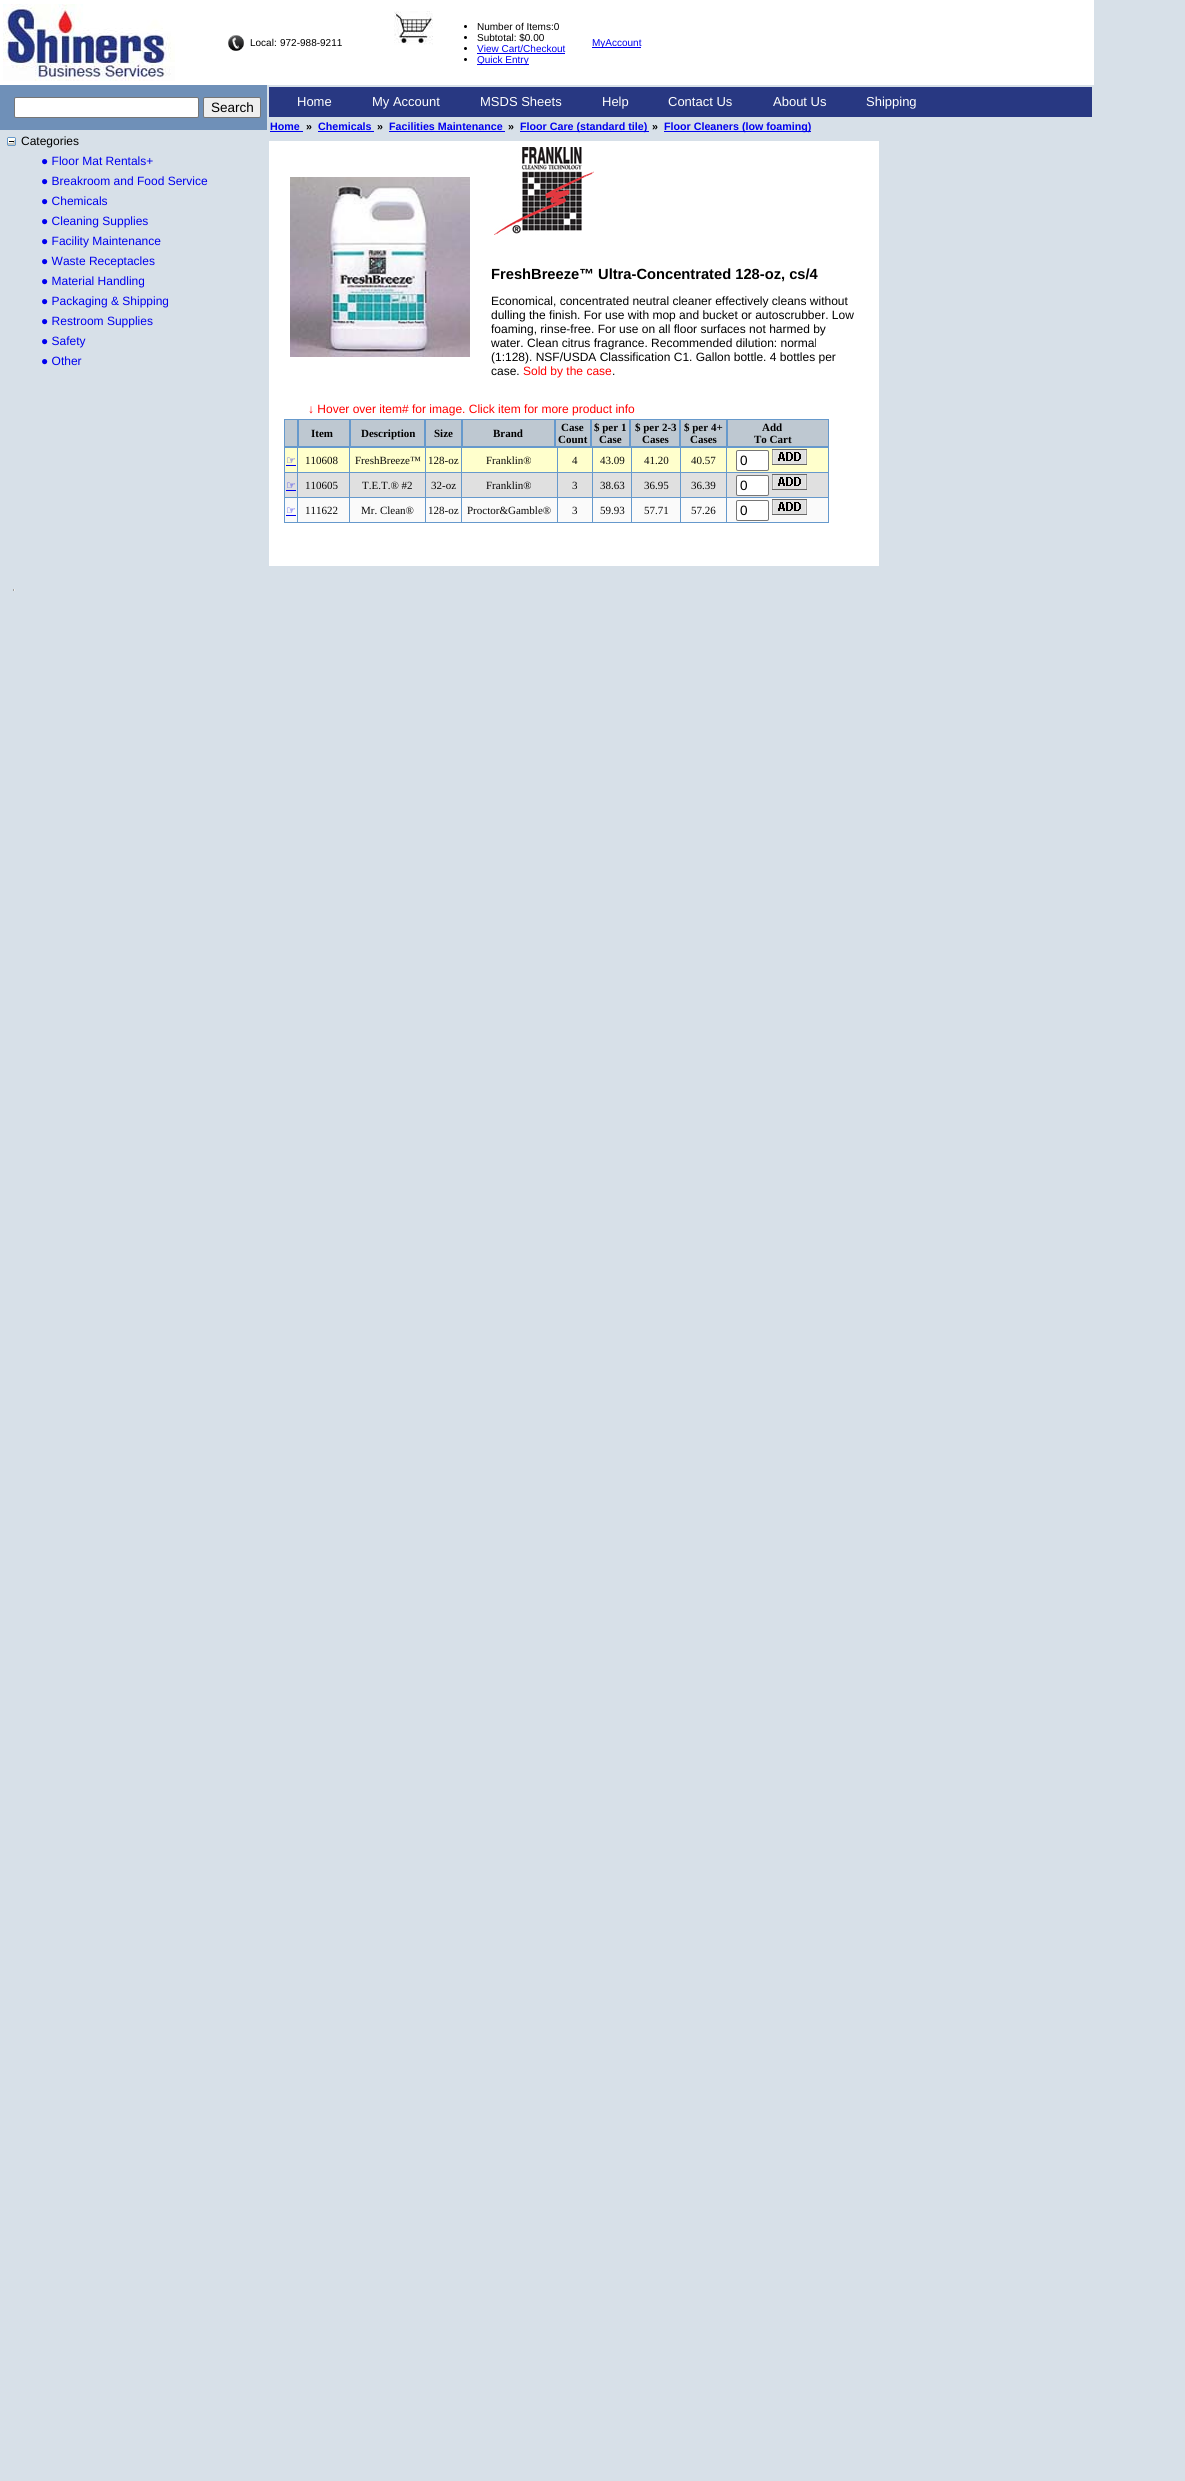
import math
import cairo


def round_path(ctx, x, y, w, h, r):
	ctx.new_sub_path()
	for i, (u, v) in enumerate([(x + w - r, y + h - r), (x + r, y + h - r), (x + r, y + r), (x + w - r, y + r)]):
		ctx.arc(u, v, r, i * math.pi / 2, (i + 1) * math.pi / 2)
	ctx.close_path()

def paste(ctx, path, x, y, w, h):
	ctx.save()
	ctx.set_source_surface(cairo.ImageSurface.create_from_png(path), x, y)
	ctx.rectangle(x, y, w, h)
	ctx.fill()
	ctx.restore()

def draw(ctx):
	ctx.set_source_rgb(0.843, 0.878, 0.91)
	ctx.paint()
	ctx.set_source_rgb(1, 1, 1)
	ctx.rectangle(0, 0, 1094, 85)
	ctx.fill()
	paste(ctx, 'media/1.png', 3, 4, 172, 77)
	paste(ctx, 'media/2.png', 228, 35, 16, 16)
	ctx.select_font_face('Liberation Sans')
	ctx.set_font_size(10)
	ctx.set_source_rgb(0, 0, 0)
	ctx.move_to(250, 46)
	ctx.show_text('Local:')
	ctx.move_to(280, 46)
	ctx.show_text('972-988-9211')
	paste(ctx, 'media/3.png', 394, 11, 39, 34)
	ctx.arc(465.5, 26.5, 1.5, 0, 2 * math.pi)
	ctx.fill()
	ctx.move_to(477, 30)
	ctx.show_text('Number of Items:0')
	ctx.new_path()
	ctx.arc(465.5, 37.5, 1.5, 0, 2 * math.pi)
	ctx.fill()
	ctx.move_to(477, 41)
	ctx.show_text('Subtotal: $0.00')
	ctx.new_path()
	ctx.arc(465.5, 48.5, 1.5, 0, 2 * math.pi)
	ctx.fill()
	ctx.set_source_rgb(0, 0, 0.933)
	ctx.move_to(477, 52)
	ctx.show_text('View Cart/Checkout')
	ctx.rectangle(477, 53, 88, 1)
	ctx.fill()
	ctx.set_source_rgb(0, 0, 0)
	ctx.arc(465.5, 59.5, 1.5, 0, 2 * math.pi)
	ctx.fill()
	ctx.set_source_rgb(0, 0, 0.933)
	ctx.rectangle(477, 64, 52, 1)
	ctx.fill()
	ctx.move_to(477, 63)
	ctx.show_text('Quick Entry')
	ctx.rectangle(592, 47, 49, 1)
	ctx.fill()
	ctx.move_to(592, 46)
	ctx.show_text('MyAccount')
	ctx.set_source_rgb(0.435, 0.565, 0.722)
	ctx.rectangle(0, 85, 267, 45)
	ctx.fill()
	ctx.set_source_rgb(1, 1, 1)
	round_path(ctx, 14.5, 97.5, 184, 20, 1.5)
	ctx.fill_preserve()
	ctx.set_source_rgb(0.463, 0.463, 0.463)
	ctx.set_line_width(1)
	ctx.stroke()
	ctx.set_source_rgb(0.937, 0.937, 0.937)
	round_path(ctx, 203.5, 97.5, 57, 20, 1.5)
	ctx.fill_preserve()
	ctx.set_source_rgb(0.463, 0.463, 0.463)
	ctx.stroke()
	ctx.set_font_size(13.5)
	ctx.set_source_rgb(0, 0, 0)
	ctx.move_to(211, 112)
	ctx.show_text('Search')
	paste(ctx, 'media/4.png', 7, 137, 9, 9)
	ctx.set_font_size(12)
	ctx.move_to(21, 145)
	ctx.show_text('Categories')
	ctx.set_source_rgb(0, 0, 0.933)
	for x, y, s in [
		(41, 165, '● Floor Mat Rentals+'),
		(41, 185, '● Breakroom and Food Service'),
		(41, 205, '● Chemicals'),
		(41, 225, '● Cleaning Supplies'),
		(41, 245, '● Facility Maintenance'),
		(41, 265, '● Waste Receptacles'),
		(41, 285, '● Material Handling'),
		(41, 305, '● Packaging & Shipping'),
		(41, 325, '● Restroom Supplies'),
		(41, 345, '● Safety'),
		(41, 365, '● Other'),
	]:
		ctx.move_to(x, y)
		ctx.show_text(s)
	ctx.set_source_rgb(0.157, 0.22, 0.51)
	ctx.rectangle(269, 87, 823, 30)
	ctx.fill()
	ctx.set_font_size(13)
	ctx.set_source_rgb(1, 1, 1)
	for x, y, s in [
		(297, 106, 'Home'),
		(372, 106, 'My Account'),
		(480, 106, 'MSDS Sheets'),
		(602, 106, 'Help'),
		(668, 106, 'Contact Us'),
		(773, 106, 'About Us'),
		(866, 106, 'Shipping'),
	]:
		ctx.move_to(x, y)
		ctx.show_text(s)
	ctx.select_font_face('Liberation Sans', cairo.FONT_SLANT_NORMAL, cairo.FONT_WEIGHT_BOLD)
	ctx.set_font_size(10.7)
	ctx.set_source_rgb(0, 0, 0.933)
	ctx.move_to(270, 130)
	ctx.show_text('Home')
	ctx.rectangle(270, 131, 33, 1)
	ctx.fill()
	ctx.set_source_rgb(0, 0, 0)
	ctx.move_to(306, 130)
	ctx.show_text('»')
	ctx.set_source_rgb(0, 0, 0.933)
	ctx.move_to(318, 130)
	ctx.show_text('Chemicals')
	ctx.rectangle(318, 131, 56, 1)
	ctx.fill()
	ctx.set_source_rgb(0, 0, 0)
	ctx.move_to(377, 130)
	ctx.show_text('»')
	ctx.set_source_rgb(0, 0, 0.933)
	ctx.move_to(389, 130)
	ctx.show_text('Facilities Maintenance')
	ctx.rectangle(389, 131, 116, 1)
	ctx.fill()
	ctx.set_source_rgb(0, 0, 0)
	ctx.move_to(508, 130)
	ctx.show_text('»')
	ctx.set_source_rgb(0, 0, 0.933)
	ctx.rectangle(520, 131, 129, 1)
	ctx.fill()
	ctx.move_to(520, 130)
	ctx.show_text('Floor Care (standard tile)')
	ctx.set_source_rgb(0, 0, 0)
	ctx.move_to(652, 130)
	ctx.show_text('»')
	ctx.set_source_rgb(0, 0, 0.933)
	ctx.rectangle(664, 131, 147, 1)
	ctx.fill()
	ctx.move_to(664, 130)
	ctx.show_text('Floor Cleaners (low foaming)')
	ctx.set_source_rgb(1, 1, 1)
	ctx.rectangle(269, 141, 610, 425)
	ctx.fill()
	paste(ctx, 'media/5.png', 290, 177, 180, 180)
	paste(ctx, 'media/6.png', 494, 147, 100, 88)
	ctx.set_font_size(14.7)
	ctx.set_source_rgb(0, 0, 0)
	ctx.move_to(491, 279)
	ctx.show_text('FreshBreeze™ Ultra-Concentrated 128-oz, cs/4')
	ctx.select_font_face('Liberation Sans')
	ctx.set_font_size(12)
	for x, y, s in [
		(491, 305, 'Economical, concentrated neutral cleaner effectively cleans without'),
		(491, 319, 'dulling the finish. For use with mop and bucket or autoscrubber. Low'),
		(491, 333, 'foaming, rinse-free. For use on all floor surfaces not harmed by'),
		(491, 347, 'water. Clean citrus fragrance. Recommended dilution: normal'),
		(491, 361, '(1:128). NSF/USDA Classification C1. Gallon bottle. 4 bottles per'),
		(491, 375, 'case.'),
	]:
		ctx.move_to(x, y)
		ctx.show_text(s)
	ctx.set_source_rgb(1, 0, 0)
	ctx.move_to(523, 375)
	ctx.show_text('Sold by the case')
	ctx.set_source_rgb(0, 0, 0)
	ctx.move_to(612, 375)
	ctx.show_text('.')
	ctx.set_source_rgb(1, 0, 0)
	ctx.move_to(308, 413)
	ctx.show_text('↓ Hover over item# for image. Click item for more product info')
	ctx.set_source_rgb(0.745, 0.784, 0.82)
	ctx.rectangle(284.5, 419.5, 13, 27)
	ctx.fill_preserve()
	ctx.set_source_rgb(0.4, 0.6, 0.8)
	ctx.stroke()
	ctx.set_source_rgb(0.745, 0.784, 0.82)
	ctx.rectangle(298.5, 419.5, 51, 27)
	ctx.fill_preserve()
	ctx.set_source_rgb(0.4, 0.6, 0.8)
	ctx.stroke()
	ctx.select_font_face('Liberation Serif', cairo.FONT_SLANT_NORMAL, cairo.FONT_WEIGHT_BOLD)
	ctx.set_font_size(11)
	ctx.set_source_rgb(0, 0, 0)
	ctx.move_to(311, 437)
	ctx.show_text('Item')
	ctx.set_source_rgb(0.745, 0.784, 0.82)
	ctx.rectangle(350.5, 419.5, 74, 27)
	ctx.fill_preserve()
	ctx.set_source_rgb(0.4, 0.6, 0.8)
	ctx.stroke()
	ctx.set_source_rgb(0, 0, 0)
	ctx.move_to(361, 437)
	ctx.show_text('Description')
	ctx.set_source_rgb(0.745, 0.784, 0.82)
	ctx.rectangle(425.5, 419.5, 36, 27)
	ctx.fill_preserve()
	ctx.set_source_rgb(0.4, 0.6, 0.8)
	ctx.stroke()
	ctx.set_source_rgb(0, 0, 0)
	ctx.move_to(434, 437)
	ctx.show_text('Size')
	ctx.set_source_rgb(0.745, 0.784, 0.82)
	ctx.rectangle(462.5, 419.5, 92, 27)
	ctx.fill_preserve()
	ctx.set_source_rgb(0.4, 0.6, 0.8)
	ctx.stroke()
	ctx.set_source_rgb(0, 0, 0)
	ctx.move_to(493, 437)
	ctx.show_text('Brand')
	ctx.set_source_rgb(0.745, 0.784, 0.82)
	ctx.rectangle(555.5, 419.5, 35, 27)
	ctx.fill_preserve()
	ctx.set_source_rgb(0.4, 0.6, 0.8)
	ctx.stroke()
	ctx.set_source_rgb(0, 0, 0)
	ctx.move_to(561, 431)
	ctx.show_text('Case')
	ctx.move_to(558, 443)
	ctx.show_text('Count')
	ctx.set_source_rgb(0.745, 0.784, 0.82)
	ctx.rectangle(591.5, 419.5, 38, 27)
	ctx.fill_preserve()
	ctx.set_source_rgb(0.4, 0.6, 0.8)
	ctx.stroke()
	ctx.set_source_rgb(0, 0, 0)
	ctx.move_to(594, 431)
	ctx.show_text('$ per 1')
	ctx.move_to(599, 443)
	ctx.show_text('Case')
	ctx.set_source_rgb(0.745, 0.784, 0.82)
	ctx.rectangle(630.5, 419.5, 49, 27)
	ctx.fill_preserve()
	ctx.set_source_rgb(0.4, 0.6, 0.8)
	ctx.stroke()
	ctx.set_source_rgb(0, 0, 0)
	ctx.move_to(635, 431)
	ctx.show_text('$ per 2-3')
	ctx.move_to(642, 443)
	ctx.show_text('Cases')
	ctx.set_source_rgb(0.745, 0.784, 0.82)
	ctx.rectangle(680.5, 419.5, 46, 27)
	ctx.fill_preserve()
	ctx.set_source_rgb(0.4, 0.6, 0.8)
	ctx.stroke()
	ctx.set_source_rgb(0, 0, 0)
	ctx.move_to(684, 431)
	ctx.show_text('$ per 4+')
	ctx.move_to(690, 443)
	ctx.show_text('Cases')
	ctx.set_source_rgb(0.745, 0.784, 0.82)
	ctx.rectangle(727.5, 419.5, 101, 27)
	ctx.fill_preserve()
	ctx.set_source_rgb(0.4, 0.6, 0.8)
	ctx.stroke()
	ctx.set_source_rgb(0, 0, 0)
	ctx.move_to(762, 431)
	ctx.show_text('Add')
	ctx.move_to(754, 443)
	ctx.show_text('To Cart')
	ctx.set_source_rgb(0.98, 0.98, 0.98)
	ctx.rectangle(285, 498, 543, 24)
	ctx.fill()
	ctx.set_source_rgb(1, 1, 0.8)
	ctx.rectangle(285, 448, 12, 24)
	ctx.fill()
	ctx.set_source_rgb(0.4, 0.6, 0.8)
	ctx.rectangle(726, 447, 103, 1)
	ctx.rectangle(726, 472, 103, 1)
	ctx.rectangle(726, 497, 103, 1)
	ctx.rectangle(828, 497, 1, 26)
	ctx.rectangle(726, 522, 103, 1)
	ctx.rectangle(726, 497, 1, 26)
	ctx.rectangle(680, 497, 47, 1)
	ctx.rectangle(726, 472, 1, 26)
	ctx.rectangle(680, 472, 47, 1)
	ctx.rectangle(726, 447, 1, 26)
	ctx.rectangle(680, 447, 47, 1)
	ctx.rectangle(680, 522, 47, 1)
	ctx.rectangle(680, 497, 1, 26)
	ctx.rectangle(631, 497, 50, 1)
	ctx.rectangle(680, 472, 1, 26)
	ctx.rectangle(631, 472, 50, 1)
	ctx.rectangle(680, 447, 1, 26)
	ctx.rectangle(631, 447, 50, 1)
	ctx.rectangle(631, 522, 50, 1)
	ctx.rectangle(631, 497, 1, 26)
	ctx.rectangle(592, 497, 40, 1)
	ctx.rectangle(631, 472, 1, 26)
	ctx.rectangle(592, 472, 40, 1)
	ctx.rectangle(631, 447, 1, 26)
	ctx.rectangle(592, 447, 40, 1)
	ctx.rectangle(592, 522, 40, 1)
	ctx.rectangle(592, 497, 1, 26)
	ctx.rectangle(557, 497, 36, 1)
	ctx.rectangle(592, 472, 1, 26)
	ctx.rectangle(557, 472, 36, 1)
	ctx.rectangle(592, 447, 1, 26)
	ctx.rectangle(557, 447, 36, 1)
	ctx.rectangle(557, 522, 36, 1)
	ctx.rectangle(557, 497, 1, 26)
	ctx.rectangle(461, 497, 97, 1)
	ctx.rectangle(557, 472, 1, 26)
	ctx.rectangle(461, 472, 97, 1)
	ctx.rectangle(557, 447, 1, 26)
	ctx.rectangle(461, 447, 97, 1)
	ctx.rectangle(461, 522, 97, 1)
	ctx.rectangle(461, 497, 1, 26)
	ctx.rectangle(425, 497, 37, 1)
	ctx.rectangle(461, 472, 1, 26)
	ctx.rectangle(425, 472, 37, 1)
	ctx.rectangle(461, 447, 1, 26)
	ctx.rectangle(425, 447, 37, 1)
	ctx.rectangle(425, 522, 37, 1)
	ctx.rectangle(425, 497, 1, 26)
	ctx.rectangle(349, 497, 77, 1)
	ctx.rectangle(425, 472, 1, 26)
	ctx.rectangle(349, 472, 77, 1)
	ctx.rectangle(425, 447, 1, 26)
	ctx.rectangle(349, 447, 77, 1)
	ctx.rectangle(349, 522, 77, 1)
	ctx.rectangle(349, 497, 1, 26)
	ctx.rectangle(297, 497, 53, 1)
	ctx.rectangle(349, 472, 1, 26)
	ctx.rectangle(297, 472, 53, 1)
	ctx.rectangle(349, 447, 1, 26)
	ctx.rectangle(297, 447, 53, 1)
	ctx.rectangle(297, 522, 53, 1)
	ctx.rectangle(297, 497, 1, 26)
	ctx.rectangle(284, 497, 14, 1)
	ctx.rectangle(297, 472, 1, 26)
	ctx.rectangle(284, 472, 14, 1)
	ctx.rectangle(297, 447, 1, 26)
	ctx.rectangle(284, 447, 14, 1)
	ctx.rectangle(284, 522, 14, 1)
	ctx.rectangle(284, 497, 1, 26)
	ctx.rectangle(284, 472, 1, 26)
	ctx.rectangle(284, 447, 1, 26)
	ctx.fill()
	ctx.select_font_face('DejaVu Sans')
	ctx.set_source_rgb(0, 0, 0.933)
	ctx.move_to(286, 464)
	ctx.show_text('☞')
	ctx.rectangle(286, 465, 10, 1)
	ctx.fill()
	ctx.set_source_rgb(1, 1, 0.8)
	ctx.rectangle(298, 448, 51, 24)
	ctx.fill()
	ctx.select_font_face('Liberation Serif')
	ctx.set_source_rgb(0.035, 0.035, 0.035)
	ctx.move_to(305, 464)
	ctx.show_text('110608')
	ctx.set_source_rgb(1, 1, 0.8)
	ctx.rectangle(350, 448, 75, 24)
	ctx.fill()
	ctx.set_source_rgb(0.035, 0.035, 0.035)
	ctx.move_to(355, 464)
	ctx.show_text('FreshBreeze™')
	ctx.set_source_rgb(1, 1, 0.8)
	ctx.rectangle(426, 448, 35, 24)
	ctx.fill()
	ctx.set_source_rgb(0.035, 0.035, 0.035)
	ctx.move_to(428, 464)
	ctx.show_text('128-oz')
	ctx.set_source_rgb(1, 1, 0.8)
	ctx.rectangle(462, 448, 95, 24)
	ctx.fill()
	ctx.set_source_rgb(0.035, 0.035, 0.035)
	ctx.move_to(486, 464)
	ctx.show_text('Franklin®')
	ctx.set_source_rgb(1, 1, 0.8)
	ctx.rectangle(558, 448, 34, 24)
	ctx.fill()
	ctx.set_source_rgb(0.035, 0.035, 0.035)
	ctx.move_to(572, 464)
	ctx.show_text('4')
	ctx.set_source_rgb(1, 1, 0.8)
	ctx.rectangle(593, 448, 38, 24)
	ctx.fill()
	ctx.set_source_rgb(0.035, 0.035, 0.035)
	ctx.move_to(600, 464)
	ctx.show_text('43.09')
	ctx.set_source_rgb(1, 1, 0.8)
	ctx.rectangle(632, 448, 48, 24)
	ctx.fill()
	ctx.set_source_rgb(0.035, 0.035, 0.035)
	ctx.move_to(644, 464)
	ctx.show_text('41.20')
	ctx.set_source_rgb(1, 1, 0.8)
	ctx.rectangle(681, 448, 45, 24)
	ctx.fill()
	ctx.set_source_rgb(0.035, 0.035, 0.035)
	ctx.move_to(691, 464)
	ctx.show_text('40.57')
	ctx.set_source_rgb(1, 1, 0.8)
	ctx.rectangle(727, 448, 101, 24)
	ctx.fill()
	ctx.set_source_rgb(0.4, 0.6, 0.8)
	ctx.rectangle(828, 472, 1, 26)
	ctx.rectangle(828, 447, 1, 26)
	ctx.fill()
	ctx.set_source_rgb(1, 1, 1)
	round_path(ctx, 736.5, 450.5, 32, 20, 1.5)
	ctx.fill_preserve()
	ctx.set_source_rgb(0.463, 0.463, 0.463)
	ctx.stroke()
	ctx.select_font_face('Liberation Sans')
	ctx.set_font_size(13.5)
	ctx.set_source_rgb(0, 0, 0)
	ctx.move_to(740, 465)
	ctx.show_text('0')
	paste(ctx, 'media/7.png', 772, 449, 35, 16)
	ctx.set_source_rgb(0.878, 0.878, 0.878)
	ctx.rectangle(285, 473, 12, 24)
	ctx.fill()
	ctx.select_font_face('DejaVu Sans')
	ctx.set_font_size(11)
	ctx.set_source_rgb(0, 0, 0.933)
	ctx.move_to(286, 489)
	ctx.show_text('☞')
	ctx.rectangle(286, 490, 10, 1)
	ctx.fill()
	ctx.set_source_rgb(0.878, 0.878, 0.878)
	ctx.rectangle(298, 473, 51, 24)
	ctx.fill()
	ctx.select_font_face('Liberation Serif')
	ctx.set_source_rgb(0.035, 0.035, 0.035)
	ctx.move_to(305, 489)
	ctx.show_text('110605')
	ctx.set_source_rgb(0.878, 0.878, 0.878)
	ctx.rectangle(350, 473, 75, 24)
	ctx.fill()
	ctx.set_source_rgb(0.035, 0.035, 0.035)
	ctx.move_to(362, 489)
	ctx.show_text('T.E.T.® #2')
	ctx.set_source_rgb(0.878, 0.878, 0.878)
	ctx.rectangle(426, 473, 35, 24)
	ctx.fill()
	ctx.set_source_rgb(0.035, 0.035, 0.035)
	ctx.move_to(431, 489)
	ctx.show_text('32-oz')
	ctx.set_source_rgb(0.878, 0.878, 0.878)
	ctx.rectangle(462, 473, 95, 24)
	ctx.fill()
	ctx.set_source_rgb(0.035, 0.035, 0.035)
	ctx.move_to(486, 489)
	ctx.show_text('Franklin®')
	ctx.set_source_rgb(0.878, 0.878, 0.878)
	ctx.rectangle(558, 473, 34, 24)
	ctx.fill()
	ctx.set_source_rgb(0.035, 0.035, 0.035)
	ctx.move_to(572, 489)
	ctx.show_text('3')
	ctx.set_source_rgb(0.878, 0.878, 0.878)
	ctx.rectangle(593, 473, 38, 24)
	ctx.fill()
	ctx.set_source_rgb(0.035, 0.035, 0.035)
	ctx.move_to(600, 489)
	ctx.show_text('38.63')
	ctx.set_source_rgb(0.878, 0.878, 0.878)
	ctx.rectangle(632, 473, 48, 24)
	ctx.fill()
	ctx.set_source_rgb(0.035, 0.035, 0.035)
	ctx.move_to(644, 489)
	ctx.show_text('36.95')
	ctx.set_source_rgb(0.878, 0.878, 0.878)
	ctx.rectangle(681, 473, 45, 24)
	ctx.fill()
	ctx.set_source_rgb(0.035, 0.035, 0.035)
	ctx.move_to(691, 489)
	ctx.show_text('36.39')
	ctx.set_source_rgb(0.878, 0.878, 0.878)
	ctx.rectangle(727, 473, 101, 24)
	ctx.fill()
	ctx.set_source_rgb(1, 1, 1)
	round_path(ctx, 736.5, 475.5, 32, 20, 1.5)
	ctx.fill_preserve()
	ctx.set_source_rgb(0.463, 0.463, 0.463)
	ctx.stroke()
	ctx.select_font_face('Liberation Sans')
	ctx.set_font_size(13.5)
	ctx.set_source_rgb(0, 0, 0)
	ctx.move_to(740, 490)
	ctx.show_text('0')
	paste(ctx, 'media/7.png', 772, 474, 35, 16)
	ctx.select_font_face('DejaVu Sans')
	ctx.set_font_size(11)
	ctx.set_source_rgb(0, 0, 0.933)
	ctx.move_to(286, 514)
	ctx.show_text('☞')
	ctx.rectangle(286, 515, 10, 1)
	ctx.fill()
	ctx.select_font_face('Liberation Serif')
	ctx.set_source_rgb(0.035, 0.035, 0.035)
	for x, y, s in [
		(305, 514, '111622'),
		(361, 514, 'Mr. Clean®'),
		(428, 514, '128-oz'),
		(467, 514, 'Proctor&Gamble®'),
		(572, 514, '3'),
		(600, 514, '59.93'),
		(644, 514, '57.71'),
		(691, 514, '57.26'),
	]:
		ctx.move_to(x, y)
		ctx.show_text(s)
	ctx.set_source_rgb(1, 1, 1)
	round_path(ctx, 736.5, 500.5, 32, 20, 1.5)
	ctx.fill_preserve()
	ctx.set_source_rgb(0.463, 0.463, 0.463)
	ctx.stroke()
	ctx.select_font_face('Liberation Sans')
	ctx.set_font_size(13.5)
	ctx.set_source_rgb(0, 0, 0)
	ctx.move_to(740, 515)
	ctx.show_text('0')
	paste(ctx, 'media/7.png', 772, 499, 35, 16)
	ctx.set_source_rgb(0.933, 0.933, 0.933)
	ctx.rectangle(14, 589, 1, 2)
	ctx.rectangle(13, 590, 2, 1)
	ctx.fill()
	ctx.set_source_rgb(0.624, 0.624, 0.624)
	ctx.rectangle(13, 589, 1, 2)
	ctx.fill()


surface = cairo.ImageSurface(cairo.FORMAT_RGB24, 1185, 2481)
ctx = cairo.Context(surface)
options = cairo.FontOptions()
options.set_hint_metrics(cairo.HINT_METRICS_OFF)
options.set_hint_style(cairo.HINT_STYLE_NONE)
ctx.set_font_options(options)
ctx.set_miter_limit(4)
draw(ctx)
surface.write_to_png('image.png')
